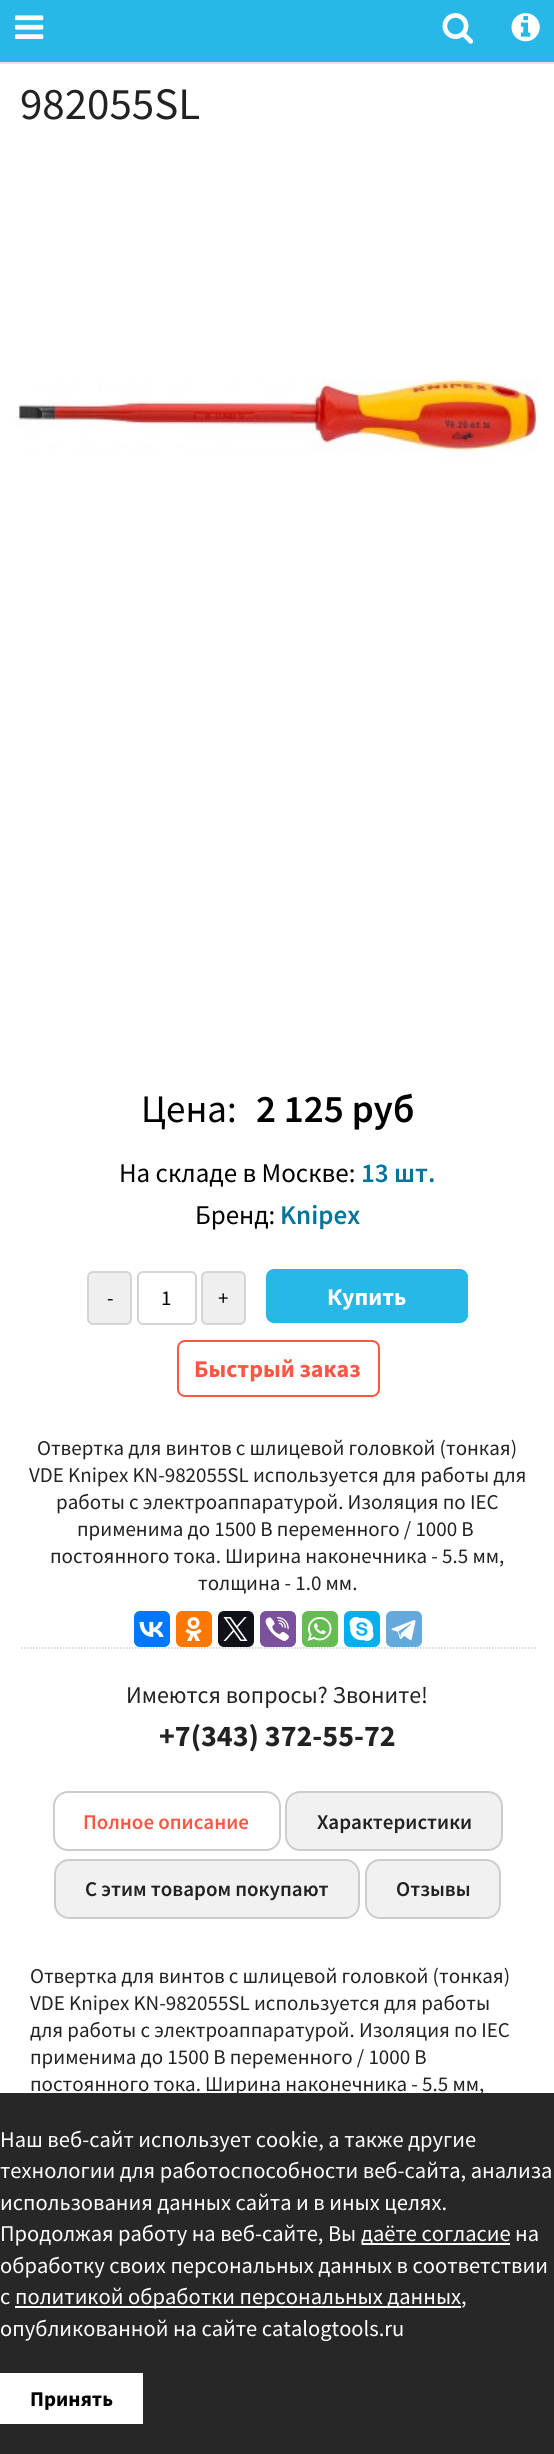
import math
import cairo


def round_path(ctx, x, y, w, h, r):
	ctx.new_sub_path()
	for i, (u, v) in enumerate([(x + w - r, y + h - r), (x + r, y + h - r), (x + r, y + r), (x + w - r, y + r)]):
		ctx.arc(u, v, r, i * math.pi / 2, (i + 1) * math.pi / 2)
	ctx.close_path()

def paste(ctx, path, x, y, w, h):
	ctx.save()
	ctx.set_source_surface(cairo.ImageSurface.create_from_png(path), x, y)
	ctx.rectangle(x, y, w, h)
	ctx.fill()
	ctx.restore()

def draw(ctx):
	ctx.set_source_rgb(1, 1, 1)
	ctx.paint()
	ctx.set_source_rgb(0.157, 0.718, 0.906)
	ctx.rectangle(0, 0, 554, 62)
	ctx.fill()
	ctx.set_source_rgb(0.898, 0.898, 0.898)
	ctx.rectangle(0, 62, 554, 2)
	ctx.fill()
	paste(ctx, 'media/1.png', 15, 15, 29, 24)
	paste(ctx, 'media/2.png', 442, 13, 32, 31)
	paste(ctx, 'media/3.png', 511, 13, 29, 29)
	ctx.select_font_face('Source Sans Pro')
	ctx.set_font_size(45)
	ctx.set_source_rgb(0.133, 0.133, 0.133)
	ctx.move_to(20, 119)
	ctx.show_text('982055SL')
	paste(ctx, 'media/4.png', 15, 378, 524, 87)
	ctx.set_font_size(39)
	ctx.set_source_rgb(0, 0, 0)
	ctx.move_to(141, 1122)
	ctx.show_text('Цена:')
	ctx.select_font_face('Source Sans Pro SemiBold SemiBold')
	ctx.move_to(256, 1122)
	ctx.show_text('2 125 руб')
	ctx.select_font_face('Source Sans Pro')
	ctx.set_font_size(27)
	ctx.move_to(119, 1182)
	ctx.show_text('На складе в Москве:')
	ctx.select_font_face('Source Sans Pro SemiBold SemiBold')
	ctx.set_source_rgb(0.004, 0.459, 0.612)
	ctx.move_to(361, 1182)
	ctx.show_text('13 шт.')
	ctx.select_font_face('Source Sans Pro')
	ctx.set_source_rgb(0, 0, 0)
	ctx.move_to(195, 1224)
	ctx.show_text('Бренд:')
	ctx.select_font_face('Source Sans Pro SemiBold SemiBold')
	ctx.set_source_rgb(0.004, 0.459, 0.612)
	ctx.move_to(280, 1224)
	ctx.show_text('Knipex')
	ctx.set_source_rgb(0.937, 0.937, 0.937)
	round_path(ctx, 88, 1272, 43, 52, 5)
	ctx.fill_preserve()
	ctx.set_source_rgb(0.835, 0.835, 0.835)
	ctx.stroke()
	ctx.select_font_face('Source Sans Pro')
	ctx.set_font_size(21)
	ctx.set_source_rgb(0, 0, 0)
	ctx.move_to(107, 1305)
	ctx.show_text('-')
	round_path(ctx, 138, 1272, 58, 52, 5)
	ctx.set_source_rgb(0.835, 0.835, 0.835)
	ctx.stroke()
	ctx.set_source_rgb(0, 0, 0)
	ctx.move_to(161, 1305)
	ctx.show_text('1')
	ctx.set_source_rgb(0.937, 0.937, 0.937)
	round_path(ctx, 202, 1272, 43, 52, 5)
	ctx.fill_preserve()
	ctx.set_source_rgb(0.835, 0.835, 0.835)
	ctx.stroke()
	ctx.set_source_rgb(0, 0, 0)
	ctx.move_to(218, 1305)
	ctx.show_text('+')
	ctx.set_source_rgb(0.157, 0.718, 0.906)
	round_path(ctx, 266, 1269, 202, 54, 8)
	ctx.fill()
	ctx.select_font_face('Source Sans Pro', cairo.FONT_SLANT_NORMAL, cairo.FONT_WEIGHT_BOLD)
	ctx.set_font_size(24)
	ctx.set_source_rgb(1, 1, 1)
	ctx.move_to(327, 1305)
	ctx.show_text('Купить')
	round_path(ctx, 178, 1341, 201, 55, 7)
	ctx.set_source_rgb(0.992, 0.341, 0.267)
	ctx.stroke()
	ctx.move_to(194, 1377)
	ctx.show_text('Быстрый заказ')
	ctx.select_font_face('Source Sans Pro')
	ctx.set_font_size(21)
	ctx.set_source_rgb(0.133, 0.133, 0.133)
	for x, y, s in [
		(37, 1455, 'Отвертка для винтов с шлицевой головкой (тонкая)'),
		(29, 1482, 'VDE Knipex KN-982055SL используется для работы для'),
		(56, 1509, 'работы с электроаппаратурой. Изоляция по IEC'),
		(77, 1536, 'применима до 1500 В переменного / 1000 В'),
		(50, 1563, 'постоянного тока. Ширина наконечника - 5.5 мм,'),
		(198, 1590, 'толщина - 1.0 мм.'),
	]:
		ctx.move_to(x, y)
		ctx.show_text(s)
	ctx.set_source_rgb(0, 0.467, 1)
	round_path(ctx, 134, 1611, 36, 36, 6)
	ctx.fill()
	paste(ctx, 'media/5.png', 139, 1621, 25, 16)
	ctx.set_source_rgb(1, 0.467, 0)
	round_path(ctx, 176, 1611, 36, 36, 6)
	ctx.fill()
	paste(ctx, 'media/6.png', 185, 1617, 17, 24)
	ctx.set_source_rgb(0.059, 0.078, 0.098)
	round_path(ctx, 218, 1611, 36, 36, 6)
	ctx.fill()
	paste(ctx, 'media/7.png', 223, 1617, 25, 24)
	ctx.set_source_rgb(0.482, 0.318, 0.616)
	round_path(ctx, 260, 1611, 36, 36, 6)
	ctx.fill()
	paste(ctx, 'media/8.png', 265, 1617, 24, 24)
	ctx.set_source_rgb(0.396, 0.737, 0.329)
	round_path(ctx, 302, 1611, 36, 36, 6)
	ctx.fill()
	paste(ctx, 'media/9.png', 307, 1617, 25, 24)
	ctx.set_source_rgb(0, 0.686, 0.941)
	round_path(ctx, 344, 1611, 36, 36, 6)
	ctx.fill()
	paste(ctx, 'media/10.png', 349, 1617, 25, 24)
	ctx.set_source_rgb(0.392, 0.663, 0.863)
	round_path(ctx, 386, 1611, 36, 36, 6)
	ctx.fill()
	paste(ctx, 'media/11.png', 391, 1620, 25, 21)
	ctx.new_path()
	ctx.move_to(21, 1648)
	ctx.line_to(535.5, 1648)
	ctx.set_source_rgb(0.8, 0.8, 0.8)
	ctx.set_line_width(1.5)
	ctx.set_dash([1.5, 1.5])
	ctx.stroke()
	ctx.set_font_size(24)
	ctx.set_source_rgb(0.133, 0.133, 0.133)
	ctx.move_to(126, 1703)
	ctx.show_text('Имеются вопросы? Звоните!')
	ctx.select_font_face('Source Sans Pro', cairo.FONT_SLANT_NORMAL, cairo.FONT_WEIGHT_BOLD)
	ctx.set_font_size(30)
	ctx.move_to(159, 1746)
	ctx.show_text('+7(343) 372-55-72')
	round_path(ctx, 54, 1792, 226, 58, 14)
	ctx.set_source_rgb(0.8, 0.8, 0.8)
	ctx.set_line_width(2)
	ctx.set_dash([])
	ctx.stroke()
	ctx.select_font_face('Source Sans Pro SemiBold SemiBold')
	ctx.set_font_size(21)
	ctx.set_source_rgb(0.992, 0.341, 0.267)
	ctx.move_to(83, 1829)
	ctx.show_text('Полное описание')
	ctx.set_source_rgb(0.945, 0.945, 0.945)
	round_path(ctx, 286, 1792, 216, 58, 14)
	ctx.fill_preserve()
	ctx.set_source_rgb(0.8, 0.8, 0.8)
	ctx.stroke()
	ctx.set_source_rgb(0.133, 0.133, 0.133)
	ctx.move_to(317, 1829)
	ctx.show_text('Характеристики')
	ctx.set_source_rgb(0.945, 0.945, 0.945)
	round_path(ctx, 55, 1860, 304, 58, 14)
	ctx.fill_preserve()
	ctx.set_source_rgb(0.8, 0.8, 0.8)
	ctx.stroke()
	ctx.set_source_rgb(0.133, 0.133, 0.133)
	ctx.move_to(85, 1896)
	ctx.show_text('С этим товаром покупают')
	ctx.set_source_rgb(0.945, 0.945, 0.945)
	round_path(ctx, 366, 1860, 134, 58, 14)
	ctx.fill_preserve()
	ctx.set_source_rgb(0.8, 0.8, 0.8)
	ctx.stroke()
	ctx.set_source_rgb(0.133, 0.133, 0.133)
	ctx.move_to(396, 1896)
	ctx.show_text('Отзывы')
	ctx.select_font_face('Source Sans Pro')
	for x, y, s in [
		(30, 1983, 'Отвертка для винтов с шлицевой головкой (тонкая)'),
		(30, 2010, 'VDE Knipex KN-982055SL используется для работы'),
		(30, 2037, 'для работы с электроаппаратурой. Изоляция по IEC'),
		(30, 2064, 'применима до 1500 В переменного / 1000 В'),
		(30, 2091, 'постоянного тока. Ширина наконечника - 5.5 мм,'),
	]:
		ctx.move_to(x, y)
		ctx.show_text(s)
	ctx.set_source_rgb(0.153, 0.153, 0.153)
	ctx.rectangle(0, 2093, 554, 361)
	ctx.fill()
	ctx.set_font_size(22.5)
	ctx.set_source_rgb(1, 1, 1)
	for x, y, s in [
		(0, 2147, 'Наш веб-сайт использует cookie, а также другие'),
		(0, 2178, 'технологии для работоспособности веб-сайта, анализа'),
		(0, 2210, 'использования данных сайта и в иных целях.'),
		(0, 2241, 'Продолжая работу на веб-сайте, Вы'),
	]:
		ctx.move_to(x, y)
		ctx.show_text(s)
	ctx.rectangle(362, 2243, 148, 2)
	ctx.fill()
	for x, y, s in [
		(361, 2241, 'даёте согласие на'),
		(0, 2273, 'обработку своих персональных данных в соответствии'),
		(0, 2304, 'с'),
	]:
		ctx.move_to(x, y)
		ctx.show_text(s)
	ctx.rectangle(15, 2306, 446, 2)
	ctx.fill()
	ctx.move_to(15, 2304)
	ctx.show_text('политикой обработки персональных данных,')
	ctx.move_to(0, 2336)
	ctx.show_text('опубликованной на сайте catalogtools.ru')
	ctx.rectangle(0, 2373, 143, 51)
	ctx.fill()
	ctx.select_font_face('Source Sans Pro', cairo.FONT_SLANT_NORMAL, cairo.FONT_WEIGHT_BOLD)
	ctx.set_font_size(21)
	ctx.set_source_rgb(0, 0, 0)
	ctx.move_to(30, 2406)
	ctx.show_text('Принять')


surface = cairo.ImageSurface(cairo.FORMAT_RGB24, 554, 2454)
ctx = cairo.Context(surface)
options = cairo.FontOptions()
options.set_hint_metrics(cairo.HINT_METRICS_OFF)
options.set_hint_style(cairo.HINT_STYLE_NONE)
ctx.set_font_options(options)
ctx.set_miter_limit(4)
draw(ctx)
surface.write_to_png('image.png')
